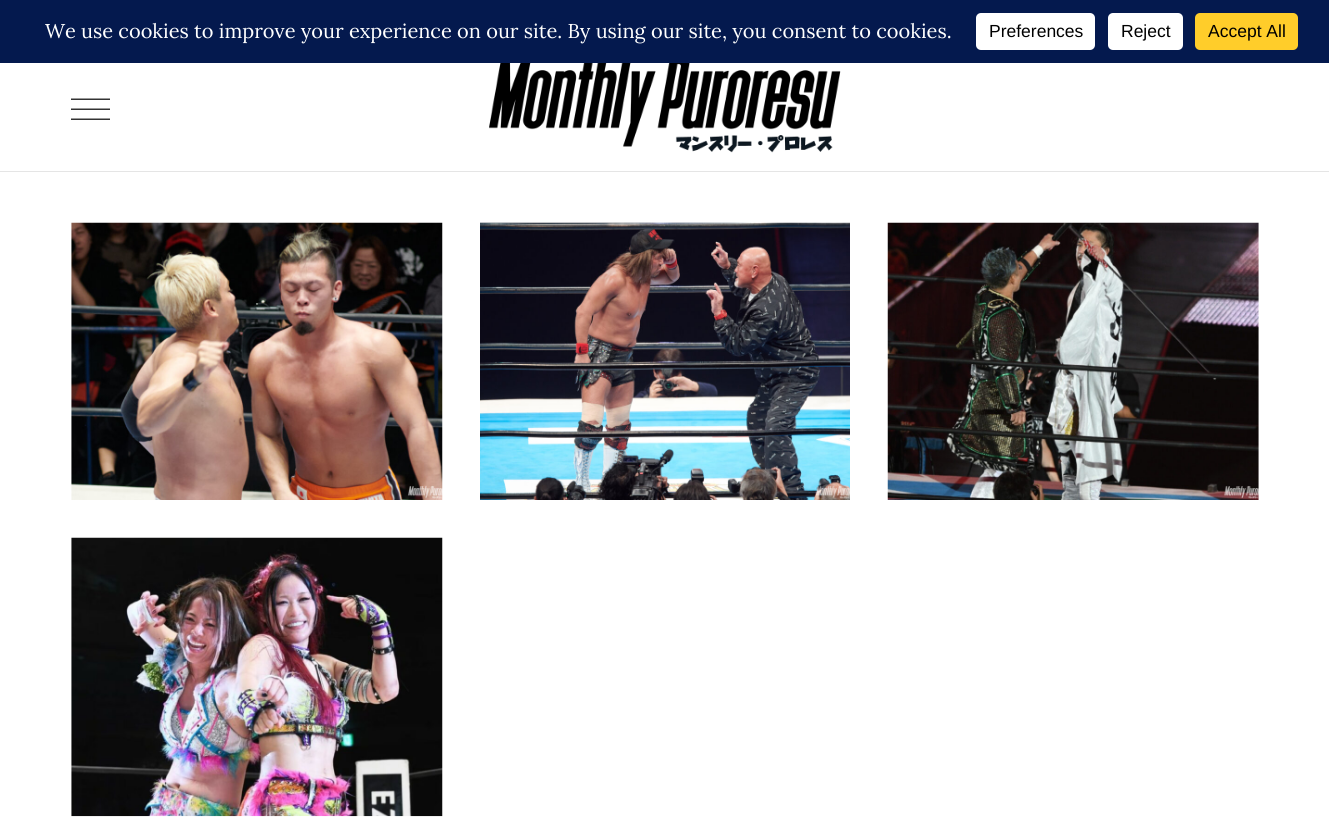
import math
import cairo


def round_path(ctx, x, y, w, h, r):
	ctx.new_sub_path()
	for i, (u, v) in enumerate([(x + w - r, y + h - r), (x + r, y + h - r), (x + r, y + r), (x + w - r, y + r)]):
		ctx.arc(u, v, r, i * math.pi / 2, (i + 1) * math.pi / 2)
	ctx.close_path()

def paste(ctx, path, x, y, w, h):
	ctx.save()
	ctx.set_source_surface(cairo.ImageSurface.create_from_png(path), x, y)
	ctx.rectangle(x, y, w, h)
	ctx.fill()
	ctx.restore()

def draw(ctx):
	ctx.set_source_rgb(1, 1, 1)
	ctx.paint()
	ctx.set_source_rgb(0.016, 0.098, 0.306)
	ctx.rectangle(0, 0, 1329, 63)
	ctx.fill()
	ctx.select_font_face('Lora')
	ctx.set_font_size(20)
	ctx.set_source_rgb(1, 1, 1)
	ctx.move_to(45, 38)
	ctx.show_text('We use cookies to improve your experience on our site. By using our site, you consent to cookies.')
	round_path(ctx, 976, 13, 119, 37, 5)
	ctx.fill()
	ctx.select_font_face('Liberation Sans')
	ctx.set_font_size(17.5)
	ctx.set_source_rgb(0, 0, 0)
	ctx.move_to(989, 37)
	ctx.show_text('Preferences')
	ctx.set_source_rgb(1, 1, 1)
	round_path(ctx, 1108, 13, 75, 37, 5)
	ctx.fill()
	ctx.set_source_rgb(0, 0, 0)
	ctx.move_to(1121, 37)
	ctx.show_text('Reject')
	ctx.set_source_rgb(1, 0.804, 0.165)
	round_path(ctx, 1195, 13, 103, 37, 5)
	ctx.fill()
	ctx.set_source_rgb(0, 0, 0)
	ctx.move_to(1208, 37)
	ctx.show_text('Accept All')
	ctx.set_source_rgb(0.898, 0.898, 0.898)
	ctx.rectangle(0, 171, 1329, 1)
	ctx.fill()
	ctx.set_source_rgb(0.2, 0.2, 0.2)
	ctx.rectangle(71, 99, 39, 1)
	ctx.fill()
	ctx.set_source_rgb(0.6, 0.6, 0.6)
	ctx.rectangle(71, 98, 39, 1)
	ctx.fill()
	ctx.set_source_rgb(0.2, 0.2, 0.2)
	ctx.rectangle(71, 109, 39, 1)
	ctx.fill()
	ctx.set_source_rgb(0.6, 0.6, 0.6)
	ctx.rectangle(71, 108, 39, 1)
	ctx.fill()
	ctx.set_source_rgb(0.2, 0.2, 0.2)
	ctx.rectangle(71, 119, 39, 1)
	ctx.fill()
	ctx.set_source_rgb(0.6, 0.6, 0.6)
	ctx.rectangle(71, 118, 39, 1)
	ctx.fill()
	paste(ctx, 'media/1.png', 489, 63, 352, 90)
	paste(ctx, 'media/2.png', 71, 222, 372, 278)
	paste(ctx, 'media/3.png', 480, 222, 370, 278)
	paste(ctx, 'media/4.png', 887, 222, 372, 278)
	paste(ctx, 'media/5.png', 71, 537, 372, 280)


surface = cairo.ImageSurface(cairo.FORMAT_RGB24, 1329, 833)
ctx = cairo.Context(surface)
options = cairo.FontOptions()
options.set_hint_metrics(cairo.HINT_METRICS_OFF)
options.set_hint_style(cairo.HINT_STYLE_NONE)
ctx.set_font_options(options)
ctx.set_miter_limit(4)
draw(ctx)
surface.write_to_png('image.png')
